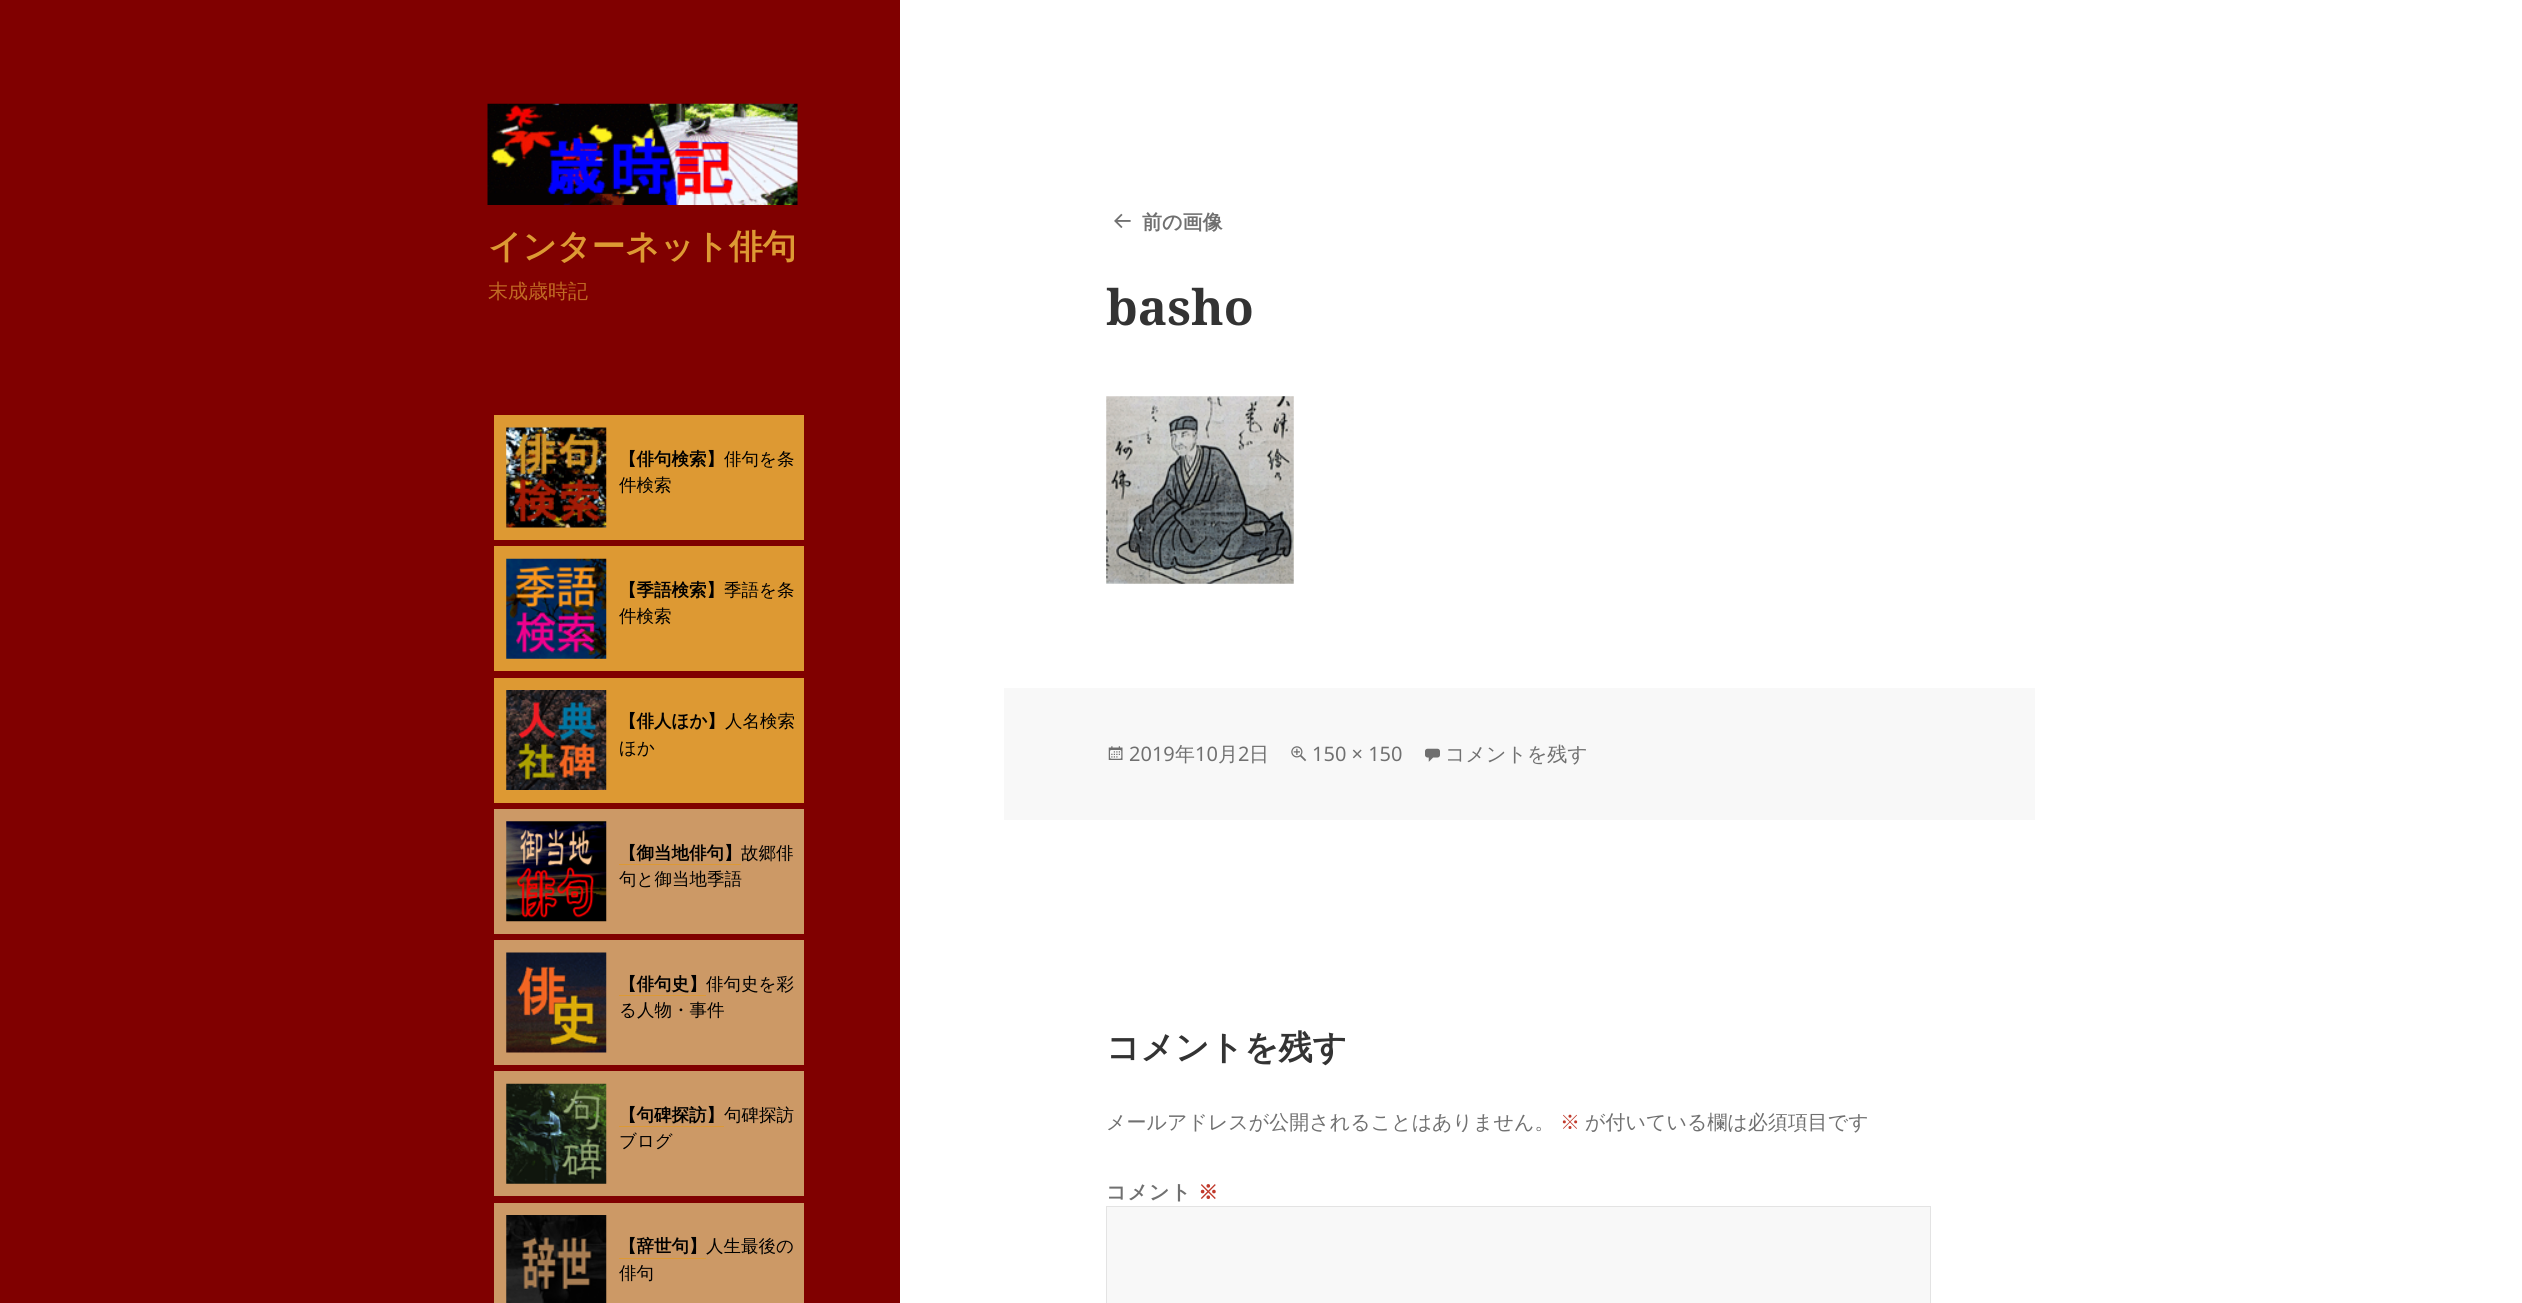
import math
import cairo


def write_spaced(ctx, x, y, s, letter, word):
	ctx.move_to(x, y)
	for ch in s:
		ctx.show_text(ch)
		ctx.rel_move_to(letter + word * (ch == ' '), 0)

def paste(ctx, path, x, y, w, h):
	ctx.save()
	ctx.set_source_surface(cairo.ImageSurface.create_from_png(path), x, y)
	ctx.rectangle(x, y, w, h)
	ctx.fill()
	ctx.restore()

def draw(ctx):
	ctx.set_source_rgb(1, 1, 1)
	ctx.paint()
	ctx.set_source_rgb(0.502, 0, 0)
	ctx.rectangle(0, 0, 900, 1303)
	ctx.fill()
	paste(ctx, 'media/1.png', 487, 103, 311, 102)
	ctx.select_font_face('WenQuanYi Zen Hei', cairo.FONT_SLANT_NORMAL, cairo.FONT_WEIGHT_BOLD)
	ctx.set_font_size(33.75)
	ctx.set_source_rgb(0.867, 0.6, 0.2)
	ctx.move_to(488, 258)
	ctx.show_text('インターネット俳句')
	ctx.select_font_face('WenQuanYi Zen Hei Medium')
	ctx.set_font_size(20)
	ctx.set_source_rgb(0.757, 0.42, 0.141)
	ctx.move_to(488, 298)
	ctx.show_text('末成歳時記')
	ctx.set_source_rgb(0.867, 0.6, 0.2)
	ctx.rectangle(494, 415, 310, 125)
	ctx.fill()
	paste(ctx, 'media/2.png', 506, 427, 101, 101)
	ctx.select_font_face('WenQuanYi Zen Hei', cairo.FONT_SLANT_NORMAL, cairo.FONT_WEIGHT_BOLD)
	ctx.set_font_size(17.5)
	ctx.set_source_rgb(0, 0, 0)
	ctx.move_to(619, 465)
	ctx.show_text('【俳句検索】')
	ctx.select_font_face('WenQuanYi Zen Hei Medium')
	ctx.move_to(724, 465)
	ctx.show_text('俳句を条')
	ctx.move_to(619, 491)
	ctx.show_text('件検索')
	ctx.set_source_rgb(0.867, 0.6, 0.2)
	ctx.rectangle(494, 546, 310, 125)
	ctx.fill()
	paste(ctx, 'media/3.png', 506, 558, 101, 101)
	ctx.select_font_face('WenQuanYi Zen Hei', cairo.FONT_SLANT_NORMAL, cairo.FONT_WEIGHT_BOLD)
	ctx.set_source_rgb(0, 0, 0)
	ctx.move_to(619, 596)
	ctx.show_text('【季語検索】')
	ctx.select_font_face('WenQuanYi Zen Hei Medium')
	ctx.move_to(724, 596)
	ctx.show_text('季語を条')
	ctx.move_to(619, 622)
	ctx.show_text('件検索')
	ctx.set_source_rgb(0.867, 0.6, 0.2)
	ctx.rectangle(494, 678, 310, 125)
	ctx.fill()
	paste(ctx, 'media/4.png', 506, 690, 101, 100)
	ctx.select_font_face('WenQuanYi Zen Hei', cairo.FONT_SLANT_NORMAL, cairo.FONT_WEIGHT_BOLD)
	ctx.set_source_rgb(0, 0, 0)
	ctx.move_to(619, 727)
	ctx.show_text('【俳人ほか】')
	ctx.select_font_face('WenQuanYi Zen Hei Medium')
	ctx.move_to(725, 727)
	ctx.show_text('人名検索')
	ctx.move_to(619, 754)
	ctx.show_text('ほか')
	ctx.set_source_rgb(0.8, 0.6, 0.4)
	ctx.rectangle(494, 809, 310, 125)
	ctx.fill()
	paste(ctx, 'media/5.png', 506, 821, 101, 101)
	ctx.select_font_face('WenQuanYi Zen Hei', cairo.FONT_SLANT_NORMAL, cairo.FONT_WEIGHT_BOLD)
	ctx.set_source_rgb(0, 0, 0)
	ctx.move_to(619, 859)
	ctx.show_text('【御当地俳句】')
	ctx.set_source_rgb(0.867, 0.6, 0.2)
	ctx.rectangle(619, 864, 122, 1)
	ctx.fill()
	ctx.select_font_face('WenQuanYi Zen Hei Medium')
	ctx.set_source_rgb(0, 0, 0)
	ctx.move_to(741, 859)
	ctx.show_text('故郷俳')
	ctx.move_to(619, 885)
	ctx.show_text('句と御当地季語')
	ctx.set_source_rgb(0.8, 0.6, 0.4)
	ctx.rectangle(494, 940, 310, 125)
	ctx.fill()
	paste(ctx, 'media/6.png', 506, 952, 101, 101)
	ctx.select_font_face('WenQuanYi Zen Hei', cairo.FONT_SLANT_NORMAL, cairo.FONT_WEIGHT_BOLD)
	ctx.set_source_rgb(0, 0, 0)
	ctx.move_to(619, 990)
	ctx.show_text('【俳句史】')
	ctx.set_source_rgb(0.867, 0.6, 0.2)
	ctx.rectangle(619, 995, 87, 1)
	ctx.fill()
	ctx.select_font_face('WenQuanYi Zen Hei Medium')
	ctx.set_source_rgb(0, 0, 0)
	ctx.move_to(706, 990)
	ctx.show_text('俳句史を彩')
	ctx.move_to(619, 1016)
	ctx.show_text('る人物・事件')
	ctx.set_source_rgb(0.8, 0.6, 0.4)
	ctx.rectangle(494, 1071, 310, 125)
	ctx.fill()
	paste(ctx, 'media/7.png', 506, 1083, 101, 101)
	ctx.select_font_face('WenQuanYi Zen Hei', cairo.FONT_SLANT_NORMAL, cairo.FONT_WEIGHT_BOLD)
	ctx.set_source_rgb(0, 0, 0)
	ctx.move_to(619, 1121)
	ctx.show_text('【句碑探訪】')
	ctx.set_source_rgb(0.867, 0.6, 0.2)
	ctx.rectangle(619, 1126, 105, 1)
	ctx.fill()
	ctx.select_font_face('WenQuanYi Zen Hei Medium')
	ctx.set_source_rgb(0, 0, 0)
	ctx.move_to(724, 1121)
	ctx.show_text('句碑探訪')
	ctx.move_to(619, 1147)
	ctx.show_text('ブログ')
	ctx.set_source_rgb(0.8, 0.6, 0.4)
	ctx.rectangle(494, 1203, 310, 100)
	ctx.fill()
	paste(ctx, 'media/8.png', 506, 1215, 101, 88)
	ctx.select_font_face('WenQuanYi Zen Hei', cairo.FONT_SLANT_NORMAL, cairo.FONT_WEIGHT_BOLD)
	ctx.set_source_rgb(0, 0, 0)
	ctx.move_to(619, 1252)
	ctx.show_text('【辞世句】')
	ctx.set_source_rgb(0.867, 0.6, 0.2)
	ctx.rectangle(619, 1258, 87, 1)
	ctx.fill()
	ctx.select_font_face('WenQuanYi Zen Hei Medium')
	ctx.set_source_rgb(0, 0, 0)
	ctx.move_to(706, 1252)
	ctx.show_text('人生最後の')
	ctx.move_to(619, 1279)
	ctx.show_text('俳句')
	paste(ctx, 'media/9.png', 1114, 213, 17, 15)
	ctx.select_font_face('WenQuanYi Zen Hei', cairo.FONT_SLANT_NORMAL, cairo.FONT_WEIGHT_BOLD)
	ctx.set_font_size(20)
	ctx.set_source_rgb(0.439, 0.439, 0.439)
	ctx.move_to(1142, 229)
	ctx.show_text('前の画像')
	ctx.select_font_face('Noto Serif', cairo.FONT_SLANT_NORMAL, cairo.FONT_WEIGHT_BOLD)
	ctx.set_font_size(49)
	ctx.set_source_rgb(0.2, 0.2, 0.2)
	ctx.move_to(1106, 325)
	ctx.show_text('basho')
	paste(ctx, 'media/10.png', 1106, 396, 188, 188)
	ctx.set_source_rgb(0.969, 0.969, 0.969)
	ctx.rectangle(1004, 688, 1031, 132)
	ctx.fill()
	paste(ctx, 'media/11.png', 1108, 746, 15, 14)
	ctx.select_font_face('Noto Sans')
	ctx.set_font_size(20)
	ctx.set_source_rgb(0.439, 0.439, 0.439)
	ctx.move_to(1129, 761)
	ctx.show_text('2019')
	ctx.select_font_face('WenQuanYi Zen Hei Medium')
	ctx.move_to(1175, 761)
	ctx.show_text('年')
	ctx.select_font_face('Noto Sans')
	ctx.move_to(1195, 761)
	ctx.show_text('10')
	ctx.select_font_face('WenQuanYi Zen Hei Medium')
	ctx.move_to(1218, 761)
	ctx.show_text('月')
	ctx.select_font_face('Noto Sans')
	ctx.move_to(1238, 761)
	ctx.show_text('2')
	ctx.select_font_face('WenQuanYi Zen Hei Medium')
	ctx.move_to(1249, 761)
	ctx.show_text('日')
	paste(ctx, 'media/12.png', 1291, 746, 16, 16)
	ctx.select_font_face('Noto Sans')
	ctx.move_to(1312, 761)
	ctx.show_text('150 × 150')
	paste(ctx, 'media/13.png', 1425, 748, 15, 14)
	ctx.select_font_face('WenQuanYi Zen Hei Medium')
	ctx.move_to(1445, 761)
	ctx.show_text('コメントを残す')
	ctx.select_font_face('WenQuanYi Zen Hei', cairo.FONT_SLANT_NORMAL, cairo.FONT_WEIGHT_BOLD)
	ctx.set_font_size(33.75)
	ctx.set_source_rgb(0.2, 0.2, 0.2)
	ctx.move_to(1106, 1059)
	ctx.show_text('コメントを残す')
	ctx.select_font_face('WenQuanYi Zen Hei Medium')
	ctx.set_font_size(20)
	ctx.set_source_rgb(0.439, 0.439, 0.439)
	ctx.move_to(1106, 1129)
	ctx.show_text('メールアドレスが公開されることはありません。')
	ctx.set_source_rgb(0.753, 0.224, 0.169)
	ctx.move_to(1560, 1129)
	ctx.show_text('※')
	ctx.set_source_rgb(0.439, 0.439, 0.439)
	ctx.move_to(1585, 1129)
	ctx.show_text('が付いている欄は必須項目です')
	ctx.select_font_face('WenQuanYi Zen Hei', cairo.FONT_SLANT_NORMAL, cairo.FONT_WEIGHT_BOLD)
	write_spaced(ctx, 1106, 1199, 'コメント', 1, 0)
	ctx.set_source_rgb(0.753, 0.224, 0.169)
	write_spaced(ctx, 1198, 1199, '※', 1, 0)
	ctx.set_source_rgb(0.969, 0.969, 0.969)
	ctx.rectangle(1106.5, 1206.5, 824, 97)
	ctx.fill_preserve()
	ctx.set_source_rgb(0.89, 0.89, 0.89)
	ctx.set_line_width(1)
	ctx.stroke()


surface = cairo.ImageSurface(cairo.FORMAT_RGB24, 2522, 1303)
ctx = cairo.Context(surface)
options = cairo.FontOptions()
options.set_hint_metrics(cairo.HINT_METRICS_OFF)
options.set_hint_style(cairo.HINT_STYLE_NONE)
ctx.set_font_options(options)
ctx.set_miter_limit(4)
draw(ctx)
surface.write_to_png('image.png')
